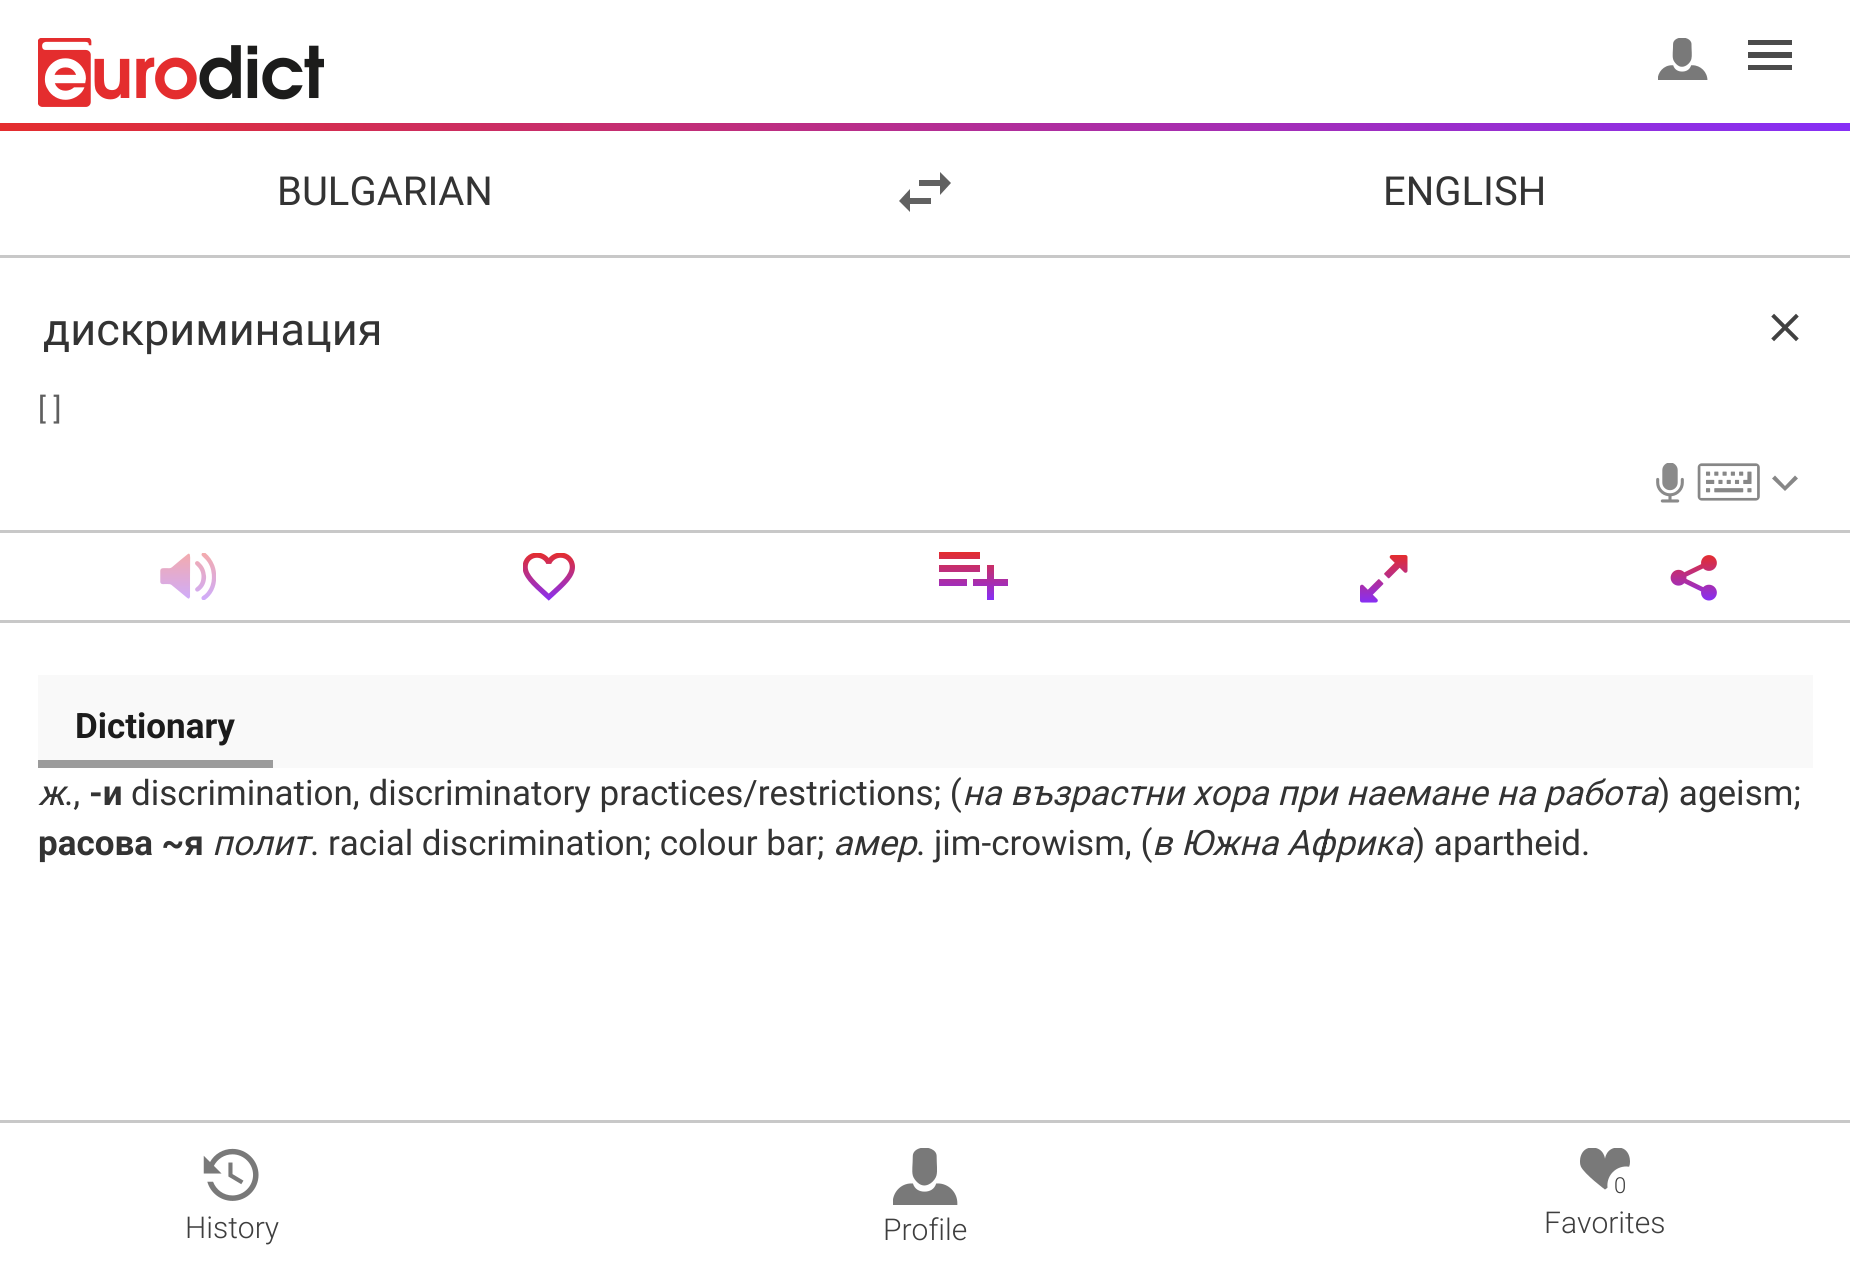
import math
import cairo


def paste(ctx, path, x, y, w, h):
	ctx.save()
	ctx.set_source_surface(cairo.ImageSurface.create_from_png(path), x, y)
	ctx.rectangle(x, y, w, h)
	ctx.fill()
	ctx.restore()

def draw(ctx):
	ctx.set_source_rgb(1, 1, 1)
	ctx.paint()
	paste(ctx, 'media/1.png', 38, 38, 286, 69)
	paste(ctx, 'media/2.png', 1658, 38, 50, 42)
	ctx.set_source_rgb(0.294, 0.294, 0.294)
	ctx.new_path()
	ctx.move_to(1748, 70)
	ctx.line_to(1792, 70)
	ctx.line_to(1792, 65)
	ctx.line_to(1748, 65)
	ctx.close_path()
	ctx.move_to(1748, 58)
	ctx.line_to(1792, 58)
	ctx.line_to(1792, 52)
	ctx.line_to(1748, 52)
	ctx.close_path()
	ctx.move_to(1748, 40)
	ctx.line_to(1748, 45)
	ctx.line_to(1792, 45)
	ctx.line_to(1792, 40)
	ctx.close_path()
	ctx.fill()
	gradient = cairo.LinearGradient(0, 126, 1850, 126)
	gradient.add_color_stop_rgba(0, 0.894, 0.176, 0.18, 1)
	gradient.add_color_stop_rgba(1, 0.525, 0.184, 0.965, 1)
	ctx.set_source(gradient)
	ctx.rectangle(0, 123, 1850, 8)
	ctx.fill()
	ctx.set_source_rgb(0.784, 0.784, 0.784)
	ctx.rectangle(0, 255, 1850, 3)
	ctx.fill()
	ctx.select_font_face('Roboto')
	ctx.set_font_size(40)
	ctx.set_source_rgb(0.2, 0.2, 0.2)
	ctx.move_to(277, 205)
	ctx.show_text('BULGARIAN')
	ctx.set_source_rgb(0.38, 0.38, 0.38)
	ctx.new_path()
	ctx.move_to(910, 189)
	ctx.line_to(899, 201)
	ctx.line_to(910, 212)
	ctx.line_to(910, 204)
	ctx.line_to(931, 204)
	ctx.line_to(931, 198)
	ctx.line_to(910, 198)
	ctx.close_path()
	ctx.move_to(951, 183)
	ctx.line_to(940, 172)
	ctx.line_to(940, 180)
	ctx.line_to(919, 180)
	ctx.line_to(919, 186)
	ctx.line_to(940, 186)
	ctx.line_to(940, 195)
	ctx.close_path()
	ctx.fill()
	ctx.set_source_rgb(0.2, 0.2, 0.2)
	ctx.move_to(1383, 205)
	ctx.show_text('ENGLISH')
	ctx.set_source_rgb(0.784, 0.784, 0.784)
	ctx.rectangle(0, 530, 1850, 3)
	ctx.fill()
	ctx.set_font_size(45)
	ctx.set_source_rgb(0.2, 0.2, 0.2)
	ctx.move_to(43, 345)
	ctx.show_text('дискриминация')
	paste(ctx, 'media/3.png', 1771, 313, 28, 29)
	ctx.set_font_size(30)
	ctx.set_source_rgb(0.373, 0.373, 0.373)
	ctx.move_to(38, 419)
	ctx.show_text('[ ]')
	paste(ctx, 'media/4.png', 1656, 463, 28, 40)
	paste(ctx, 'media/5.png', 1697, 463, 63, 38)
	ctx.set_source_rgb(0.529, 0.529, 0.529)
	ctx.new_path()
	ctx.move_to(1775, 475.5)
	ctx.line_to(1772, 478.5)
	ctx.line_to(1785, 491)
	ctx.line_to(1798, 478.5)
	ctx.line_to(1795, 475.5)
	ctx.line_to(1785, 486)
	ctx.close_path()
	ctx.fill()
	ctx.set_source_rgb(0.784, 0.784, 0.784)
	ctx.rectangle(0, 620, 1850, 3)
	ctx.fill()
	paste(ctx, 'media/6.png', 160, 553, 56, 47)
	paste(ctx, 'media/7.png', 523, 553, 52, 48)
	gradient = cairo.LinearGradient(973, 552, 973, 600)
	gradient.add_color_stop_rgba(0, 0.894, 0.176, 0.18, 1)
	gradient.add_color_stop_rgba(0.43, 0.733, 0.18, 0.518, 1)
	gradient.add_color_stop_rgba(1, 0.525, 0.184, 0.965, 1)
	ctx.set_source(gradient)
	ctx.new_path()
	ctx.move_to(980, 565)
	ctx.line_to(939, 565)
	ctx.line_to(939, 572)
	ctx.line_to(980, 572)
	ctx.close_path()
	ctx.move_to(980, 552)
	ctx.line_to(939, 552)
	ctx.line_to(939, 559)
	ctx.line_to(980, 559)
	ctx.close_path()
	ctx.move_to(994, 579)
	ctx.line_to(994, 565)
	ctx.line_to(987, 565)
	ctx.line_to(987, 579)
	ctx.line_to(973, 579)
	ctx.line_to(973, 586)
	ctx.line_to(987, 586)
	ctx.line_to(987, 600)
	ctx.line_to(994, 600)
	ctx.line_to(994, 586)
	ctx.line_to(1008, 586)
	ctx.line_to(1008, 579)
	ctx.close_path()
	ctx.move_to(939, 586)
	ctx.line_to(967, 586)
	ctx.line_to(967, 579)
	ctx.line_to(939, 579)
	ctx.close_path()
	ctx.fill()
	paste(ctx, 'media/8.png', 1360, 555, 48, 48)
	paste(ctx, 'media/9.png', 1670, 555, 47, 46)
	ctx.set_source_rgb(0.976, 0.976, 0.976)
	ctx.rectangle(38, 675, 1775, 93)
	ctx.fill()
	ctx.set_source_rgb(0.608, 0.608, 0.608)
	ctx.rectangle(38, 760, 235, 8)
	ctx.fill()
	ctx.select_font_face('Roboto', cairo.FONT_SLANT_NORMAL, cairo.FONT_WEIGHT_BOLD)
	ctx.set_font_size(35)
	ctx.set_source_rgb(0.11, 0.11, 0.11)
	ctx.move_to(75, 738)
	ctx.show_text('Dictionary')
	ctx.select_font_face('Roboto', cairo.FONT_SLANT_ITALIC)
	ctx.set_source_rgb(0.2, 0.2, 0.2)
	ctx.move_to(38, 805)
	ctx.show_text('ж')
	ctx.select_font_face('Roboto')
	ctx.move_to(64, 805)
	ctx.show_text('.,')
	ctx.select_font_face('Roboto', cairo.FONT_SLANT_NORMAL, cairo.FONT_WEIGHT_BOLD)
	ctx.move_to(89, 805)
	ctx.show_text('-и')
	ctx.select_font_face('Roboto')
	ctx.move_to(131, 805)
	ctx.show_text('discrimination, discriminatory practices/restrictions; (')
	ctx.select_font_face('Roboto', cairo.FONT_SLANT_ITALIC)
	ctx.move_to(962, 805)
	ctx.show_text('на възрастни хора при наемане на работа')
	ctx.select_font_face('Roboto')
	ctx.move_to(1658, 805)
	ctx.show_text(') ageism;')
	ctx.select_font_face('Roboto', cairo.FONT_SLANT_NORMAL, cairo.FONT_WEIGHT_BOLD)
	ctx.move_to(38, 855)
	ctx.show_text('расова ~я')
	ctx.select_font_face('Roboto', cairo.FONT_SLANT_ITALIC)
	ctx.move_to(212, 855)
	ctx.show_text('полит')
	ctx.select_font_face('Roboto')
	ctx.move_to(310, 855)
	ctx.show_text('. racial discrimination; colour bar;')
	ctx.select_font_face('Roboto', cairo.FONT_SLANT_ITALIC)
	ctx.move_to(833, 855)
	ctx.show_text('амер')
	ctx.select_font_face('Roboto')
	ctx.move_to(916, 855)
	ctx.show_text('. jim-crowism, (')
	ctx.select_font_face('Roboto', cairo.FONT_SLANT_ITALIC)
	ctx.move_to(1152, 855)
	ctx.show_text('в Южна Африка')
	ctx.select_font_face('Roboto')
	ctx.move_to(1413, 855)
	ctx.show_text(') apartheid.')
	ctx.set_source_rgb(0.784, 0.784, 0.784)
	ctx.rectangle(0, 1120, 1850, 3)
	ctx.fill()
	paste(ctx, 'media/10.png', 203, 1148, 56, 53)
	ctx.select_font_face('Roboto Light')
	ctx.set_font_size(30)
	ctx.set_source_rgb(0.243, 0.243, 0.243)
	ctx.move_to(185, 1238)
	ctx.show_text('History')
	paste(ctx, 'media/11.png', 893, 1148, 65, 57)
	ctx.move_to(883, 1240)
	ctx.show_text('Profile')
	paste(ctx, 'media/12.png', 1580, 1148, 50, 42)
	ctx.set_font_size(22)
	ctx.move_to(1614, 1193)
	ctx.show_text('0')
	ctx.set_font_size(30)
	ctx.move_to(1544, 1233)
	ctx.show_text('Favorites')


surface = cairo.ImageSurface(cairo.FORMAT_RGB24, 1850, 1278)
ctx = cairo.Context(surface)
options = cairo.FontOptions()
options.set_hint_metrics(cairo.HINT_METRICS_OFF)
options.set_hint_style(cairo.HINT_STYLE_NONE)
ctx.set_font_options(options)
ctx.set_miter_limit(4)
draw(ctx)
surface.write_to_png('image.png')
